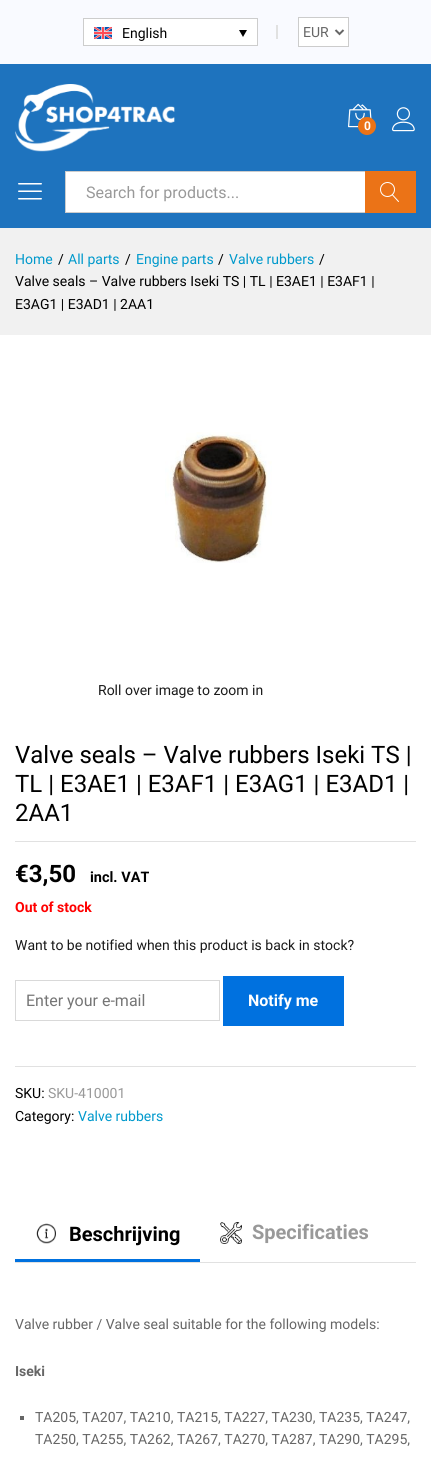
import math
import cairo


def paste(ctx, path, x, y, w, h):
	ctx.save()
	ctx.set_source_surface(cairo.ImageSurface.create_from_png(path), x, y)
	ctx.rectangle(x, y, w, h)
	ctx.fill()
	ctx.restore()

def draw(ctx):
	ctx.set_source_rgb(1, 1, 1)
	ctx.paint()
	ctx.set_source_rgb(0.973, 0.98, 1)
	ctx.rectangle(0, 0, 431, 64)
	ctx.fill()
	ctx.set_source_rgb(1, 1, 1)
	ctx.rectangle(83.5, 18.5, 174, 27)
	ctx.fill_preserve()
	ctx.set_source_rgb(0.804, 0.804, 0.804)
	ctx.set_line_width(1)
	ctx.stroke()
	paste(ctx, 'media/1.png', 94, 27, 18, 12)
	ctx.select_font_face('Roboto')
	ctx.set_font_size(14)
	ctx.set_source_rgb(0, 0, 0)
	ctx.move_to(122, 38)
	ctx.show_text('English')
	ctx.new_path()
	ctx.move_to(239, 30)
	ctx.line_to(247, 30)
	ctx.line_to(243, 37)
	ctx.close_path()
	ctx.fill()
	ctx.set_source_rgb(0.882, 0.882, 0.882)
	ctx.rectangle(276, 25, 2, 14)
	ctx.fill()
	ctx.set_source_rgb(1, 1, 1)
	ctx.rectangle(298.5, 17.5, 50, 29)
	ctx.fill_preserve()
	ctx.set_source_rgb(0.8, 0.8, 0.8)
	ctx.stroke()
	ctx.new_path()
	ctx.move_to(335.5, 30)
	ctx.line_to(339.5, 34)
	ctx.line_to(343.5, 30)
	ctx.set_source_rgb(0.4, 0.4, 0.4)
	ctx.set_line_width(2)
	ctx.stroke()
	ctx.move_to(303, 37)
	ctx.show_text('EUR')
	ctx.set_source_rgb(0.118, 0.451, 0.745)
	ctx.rectangle(0, 64, 431, 164)
	ctx.fill()
	paste(ctx, 'media/2.png', 15, 84, 160, 68)
	paste(ctx, 'media/3.png', 348, 103, 24, 25)
	ctx.set_source_rgb(0.918, 0.451, 0.09)
	ctx.arc(367, 126, 9, 0, 2 * math.pi)
	ctx.fill()
	ctx.select_font_face('Roboto', cairo.FONT_SLANT_NORMAL, cairo.FONT_WEIGHT_BOLD)
	ctx.set_font_size(12)
	ctx.set_source_rgb(1, 1, 1)
	ctx.move_to(364, 130)
	ctx.show_text('0')
	paste(ctx, 'media/4.png', 392, 107, 23, 25)
	paste(ctx, 'media/5.png', 18, 183, 24, 17)
	ctx.rectangle(66, 172, 299, 40)
	ctx.fill()
	ctx.set_source_rgb(0.8, 0.8, 0.8)
	ctx.rectangle(65, 171, 300, 1)
	ctx.rectangle(65, 212, 300, 1)
	ctx.rectangle(65, 171, 1, 42)
	ctx.fill()
	ctx.select_font_face('Roboto')
	ctx.set_font_size(16)
	ctx.set_source_rgb(0.6, 0.6, 0.6)
	ctx.move_to(86, 198)
	ctx.show_text('Search for products...')
	ctx.set_source_rgb(0.918, 0.451, 0.09)
	ctx.rectangle(365, 171, 51, 42)
	ctx.fill()
	paste(ctx, 'media/6.png', 380, 182, 19, 20)
	ctx.set_source_rgb(0.945, 0.945, 0.945)
	ctx.rectangle(0, 228, 431, 107)
	ctx.fill()
	ctx.set_font_size(14)
	ctx.set_source_rgb(0, 0.6, 0.8)
	ctx.move_to(15, 264)
	ctx.show_text('Home')
	ctx.set_source_rgb(0, 0, 0)
	ctx.move_to(58, 264)
	ctx.show_text('/')
	ctx.set_source_rgb(0, 0.6, 0.8)
	ctx.move_to(68, 264)
	ctx.show_text('All parts')
	ctx.set_source_rgb(0, 0, 0)
	ctx.move_to(125, 264)
	ctx.show_text('/')
	ctx.set_source_rgb(0, 0.6, 0.8)
	ctx.move_to(136, 264)
	ctx.show_text('Engine parts')
	ctx.set_source_rgb(0, 0, 0)
	ctx.move_to(218, 264)
	ctx.show_text('/')
	ctx.set_source_rgb(0, 0.6, 0.8)
	ctx.move_to(229, 264)
	ctx.show_text('Valve rubbers')
	ctx.set_source_rgb(0, 0, 0)
	for x, y, s in [
		(319, 264, '/'),
		(15, 286, 'Valve seals – Valve rubbers Iseki TS | TL | E3AE1 | E3AF1 |'),
		(15, 309, 'E3AG1 | E3AD1 | 2AA1'),
	]:
		ctx.move_to(x, y)
		ctx.show_text(s)
	paste(ctx, 'media/7.png', 165, 432, 107, 131)
	ctx.set_source_rgb(0.102, 0.102, 0.102)
	ctx.move_to(98, 695)
	ctx.show_text('Roll over image to zoom in')
	ctx.set_source_rgb(0.882, 0.882, 0.882)
	ctx.rectangle(15, 841, 401, 1)
	ctx.fill()
	ctx.set_font_size(24)
	ctx.set_source_rgb(0, 0, 0)
	for x, y, s in [
		(15, 763, 'Valve seals – Valve rubbers Iseki TS |'),
		(15, 792, 'TL | E3AE1 | E3AF1 | E3AG1 | E3AD1 |'),
		(15, 821, '2AA1'),
	]:
		ctx.move_to(x, y)
		ctx.show_text(s)
	ctx.select_font_face('Roboto', cairo.FONT_SLANT_NORMAL, cairo.FONT_WEIGHT_BOLD)
	ctx.move_to(15, 882)
	ctx.show_text('€3,50')
	ctx.set_font_size(14.5)
	ctx.move_to(90, 882)
	ctx.show_text('incl. VAT')
	ctx.set_font_size(14)
	ctx.set_source_rgb(1, 0, 0)
	ctx.move_to(15, 912)
	ctx.show_text('Out of stock')
	ctx.select_font_face('Roboto')
	ctx.set_source_rgb(0.102, 0.102, 0.102)
	ctx.move_to(15, 950)
	ctx.show_text('Want to be notified when this product is back in stock?')
	ctx.rectangle(15.5, 980.5, 204, 40)
	ctx.set_source_rgb(0.851, 0.851, 0.851)
	ctx.set_line_width(1)
	ctx.stroke()
	ctx.set_font_size(16)
	ctx.set_source_rgb(0.459, 0.459, 0.459)
	ctx.move_to(26, 1006)
	ctx.show_text('Enter your e-mail')
	ctx.set_source_rgb(0, 0.443, 0.875)
	ctx.rectangle(223, 976, 121, 50)
	ctx.fill()
	ctx.select_font_face('Roboto', cairo.FONT_SLANT_NORMAL, cairo.FONT_WEIGHT_BOLD)
	ctx.set_source_rgb(1, 1, 1)
	ctx.move_to(248, 1006)
	ctx.show_text('Notify me')
	ctx.set_source_rgb(0.882, 0.882, 0.882)
	ctx.rectangle(15, 1066, 401, 1)
	ctx.fill()
	ctx.select_font_face('Roboto')
	ctx.set_font_size(14)
	ctx.set_source_rgb(0, 0, 0)
	ctx.move_to(15, 1098)
	ctx.show_text('SKU:')
	ctx.set_source_rgb(0.6, 0.6, 0.6)
	ctx.move_to(48, 1098)
	ctx.show_text('SKU-410001')
	ctx.set_source_rgb(0, 0, 0)
	ctx.move_to(15, 1121)
	ctx.show_text('Category:')
	ctx.set_source_rgb(0, 0.6, 0.8)
	ctx.move_to(78, 1121)
	ctx.show_text('Valve rubbers')
	ctx.set_source_rgb(0.882, 0.882, 0.882)
	ctx.rectangle(15, 1262, 401, 1)
	ctx.fill()
	paste(ctx, 'media/8.png', 36, 1223, 20, 21)
	ctx.select_font_face('Roboto', cairo.FONT_SLANT_NORMAL, cairo.FONT_WEIGHT_BOLD)
	ctx.set_font_size(20)
	ctx.set_source_rgb(0, 0, 0)
	ctx.move_to(69, 1241)
	ctx.show_text('Beschrijving')
	paste(ctx, 'media/9.png', 220, 1222, 22, 22)
	ctx.set_source_rgb(0.6, 0.6, 0.6)
	ctx.move_to(252, 1239)
	ctx.show_text('Specificaties')
	ctx.set_source_rgb(0, 0.443, 0.875)
	ctx.rectangle(15, 1259, 185, 3)
	ctx.fill()
	ctx.select_font_face('Roboto')
	ctx.set_font_size(14)
	ctx.set_source_rgb(0.4, 0.4, 0.4)
	ctx.move_to(15, 1329)
	ctx.show_text('Valve rubber / Valve seal suitable for the following models:')
	ctx.select_font_face('Roboto', cairo.FONT_SLANT_NORMAL, cairo.FONT_WEIGHT_BOLD)
	ctx.move_to(15, 1376)
	ctx.show_text('Iseki')
	ctx.rectangle(20, 1416, 4, 4)
	ctx.fill()
	ctx.select_font_face('Roboto')
	ctx.move_to(35, 1422)
	ctx.show_text('TA205, TA207, TA210, TA215, TA227, TA230, TA235, TA247,')
	ctx.move_to(35, 1444)
	ctx.show_text('TA250, TA255, TA262, TA267, TA270, TA287, TA290, TA295,')


surface = cairo.ImageSurface(cairo.FORMAT_RGB24, 431, 1457)
ctx = cairo.Context(surface)
options = cairo.FontOptions()
options.set_hint_metrics(cairo.HINT_METRICS_OFF)
options.set_hint_style(cairo.HINT_STYLE_NONE)
ctx.set_font_options(options)
ctx.set_miter_limit(4)
draw(ctx)
surface.write_to_png('image.png')
